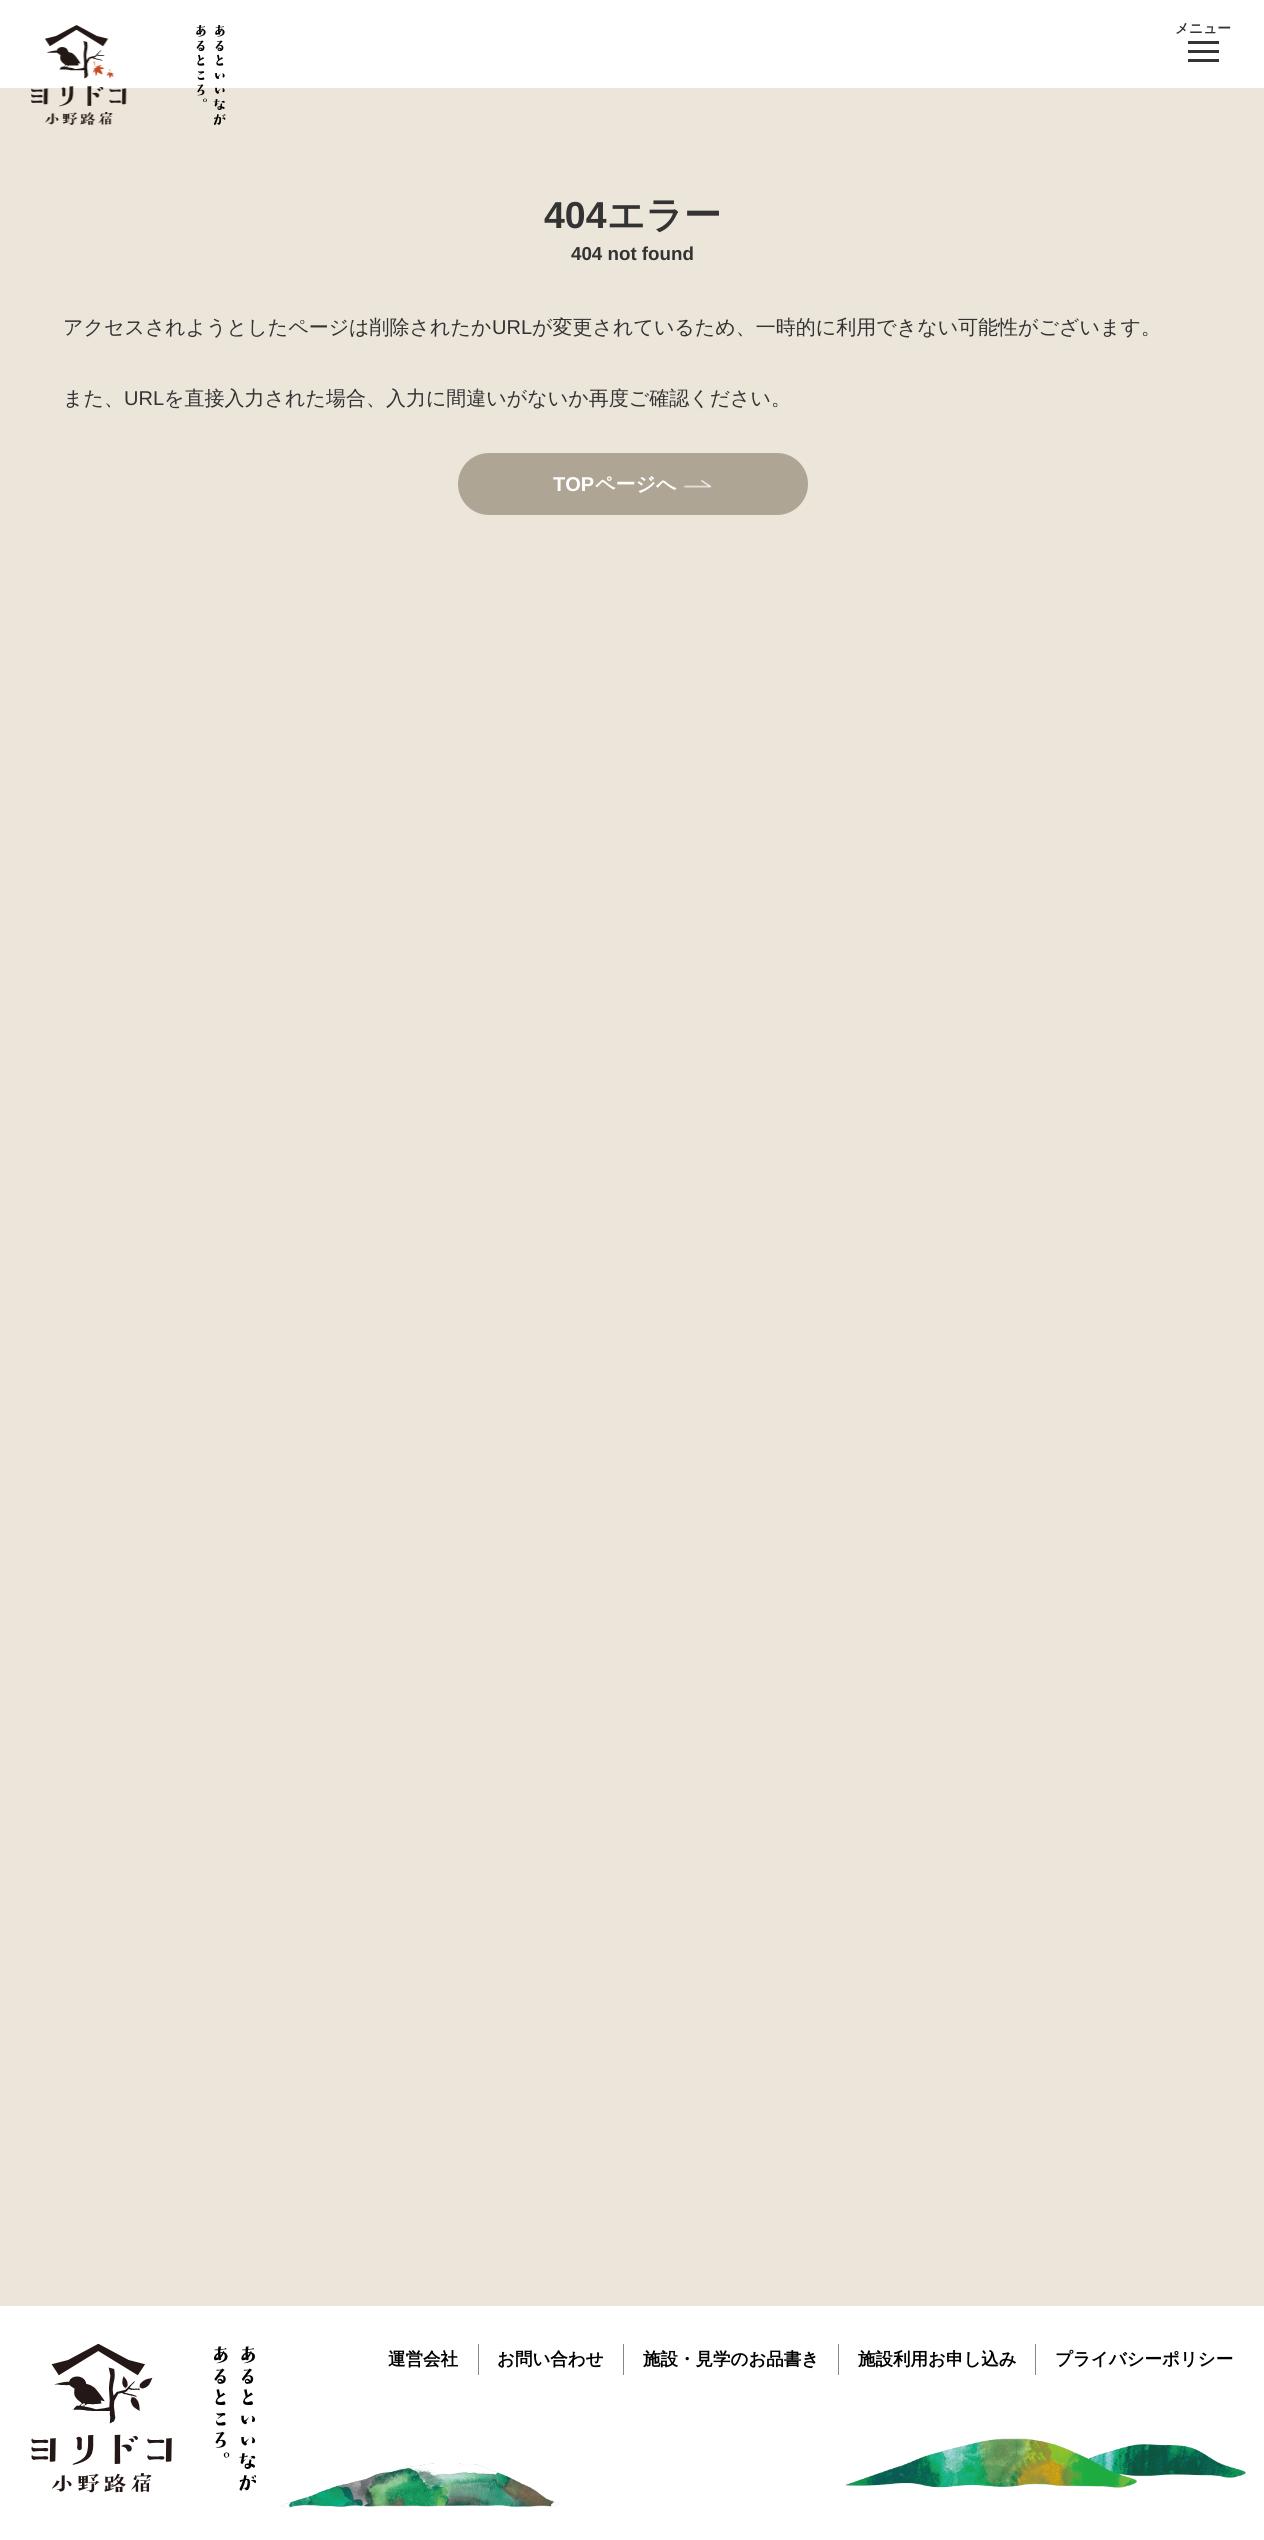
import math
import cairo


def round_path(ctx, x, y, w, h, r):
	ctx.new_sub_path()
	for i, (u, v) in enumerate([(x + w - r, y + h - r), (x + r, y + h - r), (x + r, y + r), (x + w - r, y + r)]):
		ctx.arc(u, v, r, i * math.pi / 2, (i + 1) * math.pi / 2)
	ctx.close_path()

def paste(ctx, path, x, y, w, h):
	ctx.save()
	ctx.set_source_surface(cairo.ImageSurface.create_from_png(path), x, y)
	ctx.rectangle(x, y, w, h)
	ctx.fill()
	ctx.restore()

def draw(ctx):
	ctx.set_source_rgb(1, 1, 1)
	ctx.paint()
	ctx.set_source_rgb(0.918, 0.898, 0.855)
	ctx.rectangle(0, 88, 1264, 2218)
	ctx.fill()
	paste(ctx, 'media/1.png', 31, 25, 96, 100)
	paste(ctx, 'media/2.png', 196, 25, 30, 100)
	ctx.select_font_face('WenQuanYi Zen Hei', cairo.FONT_SLANT_NORMAL, cairo.FONT_WEIGHT_BOLD)
	ctx.set_font_size(13.75)
	ctx.set_source_rgb(0.2, 0.2, 0.2)
	ctx.move_to(1175, 33)
	ctx.show_text('メニュー')
	ctx.rectangle(1188, 41, 31, 3)
	ctx.rectangle(1188, 50, 31, 3)
	ctx.rectangle(1188, 59, 31, 3)
	ctx.fill()
	ctx.select_font_face('Liberation Sans', cairo.FONT_SLANT_NORMAL, cairo.FONT_WEIGHT_BOLD)
	ctx.set_font_size(37.5)
	ctx.move_to(544, 228)
	ctx.show_text('404')
	ctx.select_font_face('WenQuanYi Zen Hei', cairo.FONT_SLANT_NORMAL, cairo.FONT_WEIGHT_BOLD)
	ctx.move_to(607, 228)
	ctx.show_text('エラー')
	ctx.select_font_face('Liberation Sans', cairo.FONT_SLANT_NORMAL, cairo.FONT_WEIGHT_BOLD)
	ctx.set_font_size(18.75)
	ctx.move_to(571, 260)
	ctx.show_text('404 not found')
	ctx.select_font_face('WenQuanYi Zen Hei Medium')
	ctx.set_font_size(20)
	ctx.move_to(63, 334)
	ctx.show_text('アクセスされようとしたページは削除されたか')
	ctx.select_font_face('Liberation Sans')
	ctx.move_to(492, 334)
	ctx.show_text('URL')
	ctx.select_font_face('WenQuanYi Zen Hei Medium')
	ctx.move_to(532, 334)
	ctx.show_text('が変更されているため、一時的に利用できない可能性がございます。')
	ctx.move_to(63, 405)
	ctx.show_text('また、')
	ctx.select_font_face('Liberation Sans')
	ctx.move_to(124, 405)
	ctx.show_text('URL')
	ctx.select_font_face('WenQuanYi Zen Hei Medium')
	ctx.move_to(164, 405)
	ctx.show_text('を直接入力された場合、入力に間違いがないか再度ご確認ください。')
	ctx.set_source_rgb(0.686, 0.647, 0.58)
	round_path(ctx, 458, 453, 350, 62, 31)
	ctx.fill()
	ctx.select_font_face('Liberation Sans', cairo.FONT_SLANT_NORMAL, cairo.FONT_WEIGHT_BOLD)
	ctx.set_source_rgb(1, 1, 1)
	ctx.move_to(553, 491)
	ctx.show_text('TOP')
	ctx.select_font_face('WenQuanYi Zen Hei', cairo.FONT_SLANT_NORMAL, cairo.FONT_WEIGHT_BOLD)
	ctx.move_to(595, 491)
	ctx.show_text('ページへ')
	paste(ctx, 'media/3.png', 683, 480, 29, 8)
	paste(ctx, 'media/4.png', 31, 2344, 225, 149)
	paste(ctx, 'media/5.png', 281, 2463, 278, 45)
	ctx.set_source_rgb(0.533, 0.533, 0.533)
	ctx.rectangle(478, 2344, 1, 31)
	ctx.fill()
	ctx.set_font_size(17.5)
	ctx.set_source_rgb(0, 0, 0)
	ctx.move_to(388, 2365)
	ctx.show_text('運営会社')
	ctx.set_source_rgb(0.533, 0.533, 0.533)
	ctx.rectangle(623, 2344, 1, 31)
	ctx.fill()
	ctx.set_source_rgb(0, 0, 0)
	ctx.move_to(497, 2365)
	ctx.show_text('お問い合わせ')
	ctx.set_source_rgb(0.533, 0.533, 0.533)
	ctx.rectangle(838, 2344, 1, 31)
	ctx.fill()
	ctx.set_source_rgb(0, 0, 0)
	ctx.move_to(643, 2365)
	ctx.show_text('施設・見学のお品書き')
	ctx.set_source_rgb(0.533, 0.533, 0.533)
	ctx.rectangle(1035, 2344, 1, 31)
	ctx.fill()
	ctx.set_source_rgb(0, 0, 0)
	ctx.move_to(858, 2365)
	ctx.show_text('施設利用お申し込み')
	ctx.move_to(1055, 2365)
	ctx.show_text('プライバシーポリシー')
	paste(ctx, 'media/6.png', 845, 2438, 401, 50)


surface = cairo.ImageSurface(cairo.FORMAT_RGB24, 1264, 2540)
ctx = cairo.Context(surface)
options = cairo.FontOptions()
options.set_hint_metrics(cairo.HINT_METRICS_OFF)
options.set_hint_style(cairo.HINT_STYLE_NONE)
ctx.set_font_options(options)
ctx.set_miter_limit(4)
draw(ctx)
surface.write_to_png('image.png')
